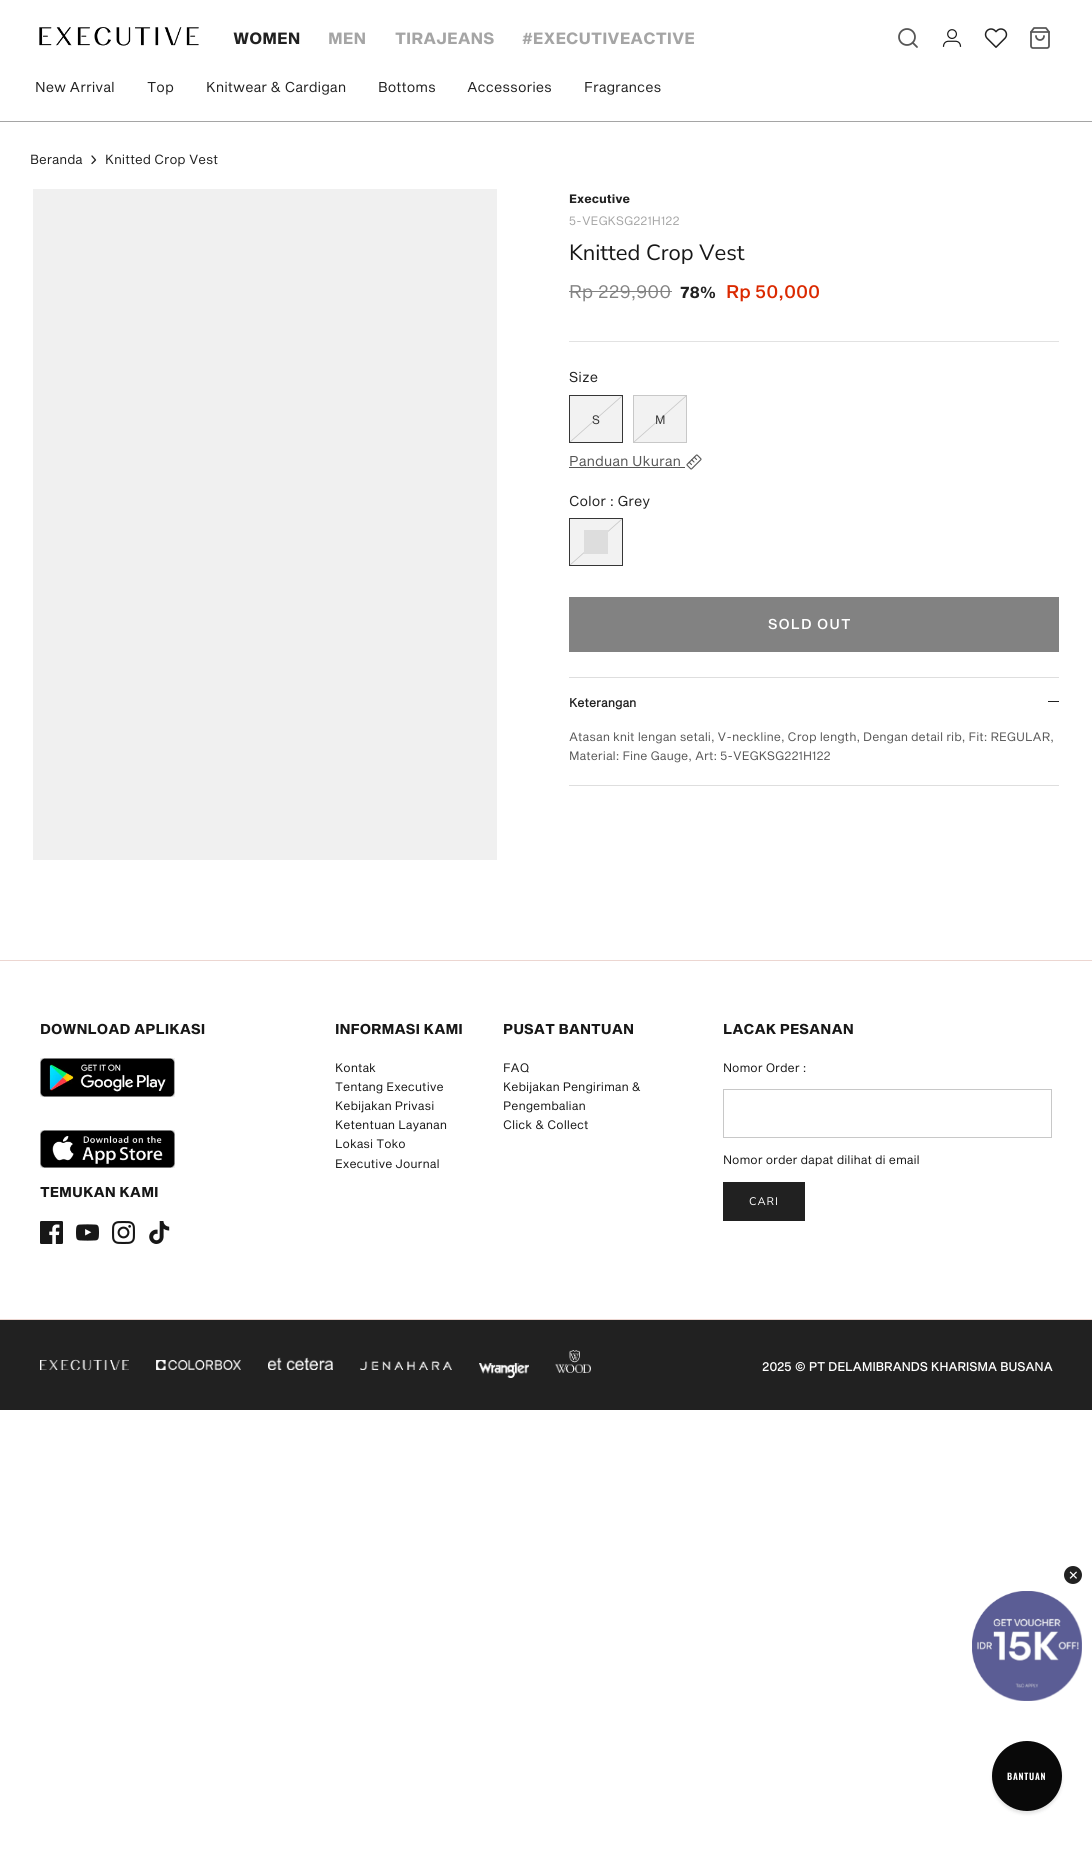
import math
import cairo


def write_spaced(ctx, x, y, s, letter, word):
	ctx.move_to(x, y)
	for ch in s:
		ctx.show_text(ch)
		ctx.rel_move_to(letter + word * (ch == ' '), 0)

def round_path(ctx, x, y, w, h, r):
	ctx.new_sub_path()
	for i, (u, v) in enumerate([(x + w - r, y + h - r), (x + r, y + h - r), (x + r, y + r), (x + w - r, y + r)]):
		ctx.arc(u, v, r, i * math.pi / 2, (i + 1) * math.pi / 2)
	ctx.close_path()

def blur_box(ctx, x, y, w, h, r, blur, alpha):
	ctx.push_group_with_content(cairo.CONTENT_ALPHA)
	ctx.set_operator(cairo.OPERATOR_SOURCE)
	for i in range(15, -16, -2):
		e = blur * i / 6
		if min(w, h) + 2 * e > 0:
			ctx.set_source_rgba(0, 0, 0, alpha * math.erfc((i - 1) / 8.5) / 2)
			round_path(ctx, x - e, y - e, w + 2 * e, h + 2 * e, max(0, min(r + e + blur * .6, min(w, h) / 2 + e)))
			ctx.fill()
	ctx.mask(ctx.pop_group())

def paste(ctx, path, x, y, w, h):
	ctx.save()
	ctx.set_source_surface(cairo.ImageSurface.create_from_png(path), x, y)
	ctx.rectangle(x, y, w, h)
	ctx.fill()
	ctx.restore()

def draw(ctx):
	ctx.set_source_rgb(1, 1, 1)
	ctx.paint()
	paste(ctx, 'media/1.png', 39, 27, 160, 19)
	ctx.select_font_face('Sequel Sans', cairo.FONT_SLANT_NORMAL, cairo.FONT_WEIGHT_BOLD)
	ctx.set_font_size(16)
	ctx.set_source_rgb(0.129, 0.129, 0.129)
	ctx.move_to(233, 44)
	ctx.show_text('WOMEN')
	ctx.set_source_rgb(0.647, 0.647, 0.647)
	for x, y, s in [
		(328, 44, 'MEN'),
		(395, 44, 'TIRAJEANS'),
		(522, 44, '#EXECUTIVEACTIVE'),
	]:
		ctx.move_to(x, y)
		ctx.show_text(s)
	paste(ctx, 'media/2.png', 898, 28, 20, 20)
	paste(ctx, 'media/3.png', 942, 29, 20, 18)
	paste(ctx, 'media/4.png', 984, 28, 24, 20)
	paste(ctx, 'media/5.png', 1030, 27, 20, 22)
	ctx.rectangle(0, 121, 1092, 1)
	ctx.fill()
	ctx.select_font_face('Sequel Sans')
	ctx.set_font_size(14)
	ctx.set_source_rgb(0.129, 0.129, 0.129)
	for x, y, s in [
		(35, 92, 'New Arrival'),
		(147, 92, 'Top'),
		(206, 92, 'Knitwear & Cardigan'),
		(378, 92, 'Bottoms'),
		(467, 92, 'Accessories'),
		(584, 92, 'Fragrances'),
	]:
		ctx.move_to(x, y)
		ctx.show_text(s)
	ctx.set_font_size(13)
	ctx.move_to(30, 164)
	ctx.show_text('Beranda')
	ctx.new_path()
	ctx.move_to(92, 163.5)
	ctx.line_to(95.5, 160)
	ctx.line_to(92, 156)
	ctx.set_line_width(1.3)
	ctx.set_line_cap(cairo.LINE_CAP_ROUND)
	ctx.set_line_join(cairo.LINE_JOIN_ROUND)
	ctx.stroke()
	ctx.move_to(105, 164)
	ctx.show_text('Knitted Crop Vest')
	ctx.set_source_rgb(0.941, 0.941, 0.941)
	ctx.rectangle(33, 189, 464, 671)
	ctx.fill()
	ctx.select_font_face('Sequel Sans', cairo.FONT_SLANT_NORMAL, cairo.FONT_WEIGHT_BOLD)
	ctx.set_font_size(12)
	ctx.set_source_rgb(0.129, 0.129, 0.129)
	ctx.move_to(569, 203)
	ctx.show_text('Executive')
	ctx.select_font_face('Sequel Sans')
	ctx.set_source_rgb(0.647, 0.647, 0.647)
	ctx.move_to(569, 225)
	ctx.show_text('5-VEGKSG221H122')
	ctx.select_font_face('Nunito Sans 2')
	ctx.set_font_size(22)
	ctx.set_source_rgb(0.09, 0.09, 0.09)
	ctx.move_to(569, 260)
	ctx.show_text('Knitted Crop Vest')
	ctx.select_font_face('Sequel Sans')
	ctx.set_font_size(18)
	ctx.set_source_rgb(0.51, 0.51, 0.51)
	ctx.move_to(569, 298)
	ctx.show_text('Rp 229,900')
	ctx.rectangle(569, 291, 103, 1)
	ctx.fill()
	ctx.select_font_face('Sequel Sans', cairo.FONT_SLANT_NORMAL, cairo.FONT_WEIGHT_BOLD)
	ctx.set_font_size(16)
	ctx.set_source_rgb(0.129, 0.129, 0.129)
	ctx.move_to(680, 298)
	ctx.show_text('78%')
	ctx.select_font_face('Sequel Sans Medium')
	ctx.set_font_size(18)
	ctx.set_source_rgb(0.859, 0.161, 0)
	ctx.move_to(726, 298)
	ctx.show_text('Rp 50,000')
	ctx.set_source_rgb(0.886, 0.886, 0.886)
	ctx.rectangle(569, 341, 490, 1)
	ctx.fill()
	ctx.select_font_face('Sequel Sans')
	ctx.set_font_size(14)
	ctx.set_source_rgb(0.129, 0.129, 0.129)
	ctx.move_to(569, 382)
	ctx.show_text('Size')
	ctx.set_source_rgb(0.949, 0.949, 0.949)
	ctx.rectangle(570, 396, 52, 46)
	ctx.fill()
	ctx.new_path()
	ctx.move_to(622, 396)
	ctx.line_to(570, 442)
	ctx.set_source_rgb(0.784, 0.784, 0.784)
	ctx.set_line_width(0.8)
	ctx.set_line_cap(cairo.LINE_CAP_BUTT)
	ctx.set_line_join(cairo.LINE_JOIN_MITER)
	ctx.stroke()
	ctx.rectangle(569.5, 395.5, 53, 47)
	ctx.set_source_rgb(0.212, 0.212, 0.212)
	ctx.set_line_width(1)
	ctx.stroke()
	ctx.set_font_size(12)
	ctx.move_to(592, 424)
	ctx.show_text('S')
	ctx.set_source_rgb(0.949, 0.949, 0.949)
	ctx.rectangle(634, 396, 52, 46)
	ctx.fill()
	ctx.new_path()
	ctx.move_to(686, 396)
	ctx.line_to(634, 442)
	ctx.set_source_rgb(0.784, 0.784, 0.784)
	ctx.set_line_width(0.8)
	ctx.stroke()
	ctx.rectangle(633.5, 395.5, 53, 47)
	ctx.set_line_width(1)
	ctx.stroke()
	ctx.set_source_rgb(0.212, 0.212, 0.212)
	ctx.move_to(655, 424)
	ctx.show_text('M')
	ctx.set_font_size(14)
	ctx.set_source_rgb(0.337, 0.337, 0.337)
	ctx.move_to(569, 466)
	ctx.show_text('Panduan Ukuran')
	ctx.rectangle(569, 467, 116, 1)
	ctx.fill()
	paste(ctx, 'media/6.png', 686, 454, 16, 16)
	ctx.set_source_rgb(0.129, 0.129, 0.129)
	ctx.move_to(569, 506)
	ctx.show_text('Color : Grey')
	ctx.set_source_rgb(0.949, 0.949, 0.949)
	ctx.rectangle(570, 519, 52, 46)
	ctx.fill()
	ctx.new_path()
	ctx.move_to(622, 519)
	ctx.line_to(570, 565)
	ctx.set_source_rgb(0.784, 0.784, 0.784)
	ctx.set_line_width(0.8)
	ctx.stroke()
	ctx.rectangle(569.5, 518.5, 53, 47)
	ctx.set_source_rgb(0.212, 0.212, 0.212)
	ctx.set_line_width(1)
	ctx.stroke()
	ctx.set_source_rgb(0.867, 0.867, 0.867)
	ctx.rectangle(584, 530, 24, 24)
	ctx.fill()
	ctx.set_source_rgb(0.51, 0.51, 0.51)
	ctx.rectangle(569, 597, 490, 55)
	ctx.fill()
	ctx.select_font_face('Sequel Sans Medium')
	ctx.set_source_rgb(1, 1, 1)
	write_spaced(ctx, 768, 629, 'SOLD OUT', 1, 0)
	ctx.set_source_rgb(0.871, 0.871, 0.871)
	ctx.rectangle(569, 677, 490, 1)
	ctx.fill()
	ctx.rectangle(569, 785, 490, 1)
	ctx.fill()
	ctx.select_font_face('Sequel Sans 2', cairo.FONT_SLANT_NORMAL, cairo.FONT_WEIGHT_BOLD)
	ctx.set_font_size(12)
	ctx.set_source_rgb(0.129, 0.129, 0.129)
	ctx.move_to(569, 707)
	ctx.show_text('Keterangan')
	ctx.rectangle(1048, 701, 11, 1)
	ctx.fill()
	ctx.select_font_face('Sequel Sans')
	ctx.set_source_rgb(0.337, 0.337, 0.337)
	ctx.move_to(569, 741)
	ctx.show_text('Atasan knit lengan setali, V-neckline, Crop length, Dengan detail rib, Fit: REGULAR,')
	ctx.move_to(569, 760)
	ctx.show_text('Material: Fine Gauge, Art: 5-VEGKSG221H122')
	ctx.set_source_rgb(0.925, 0.839, 0.82)
	ctx.rectangle(0, 960, 1092, 1)
	ctx.fill()
	ctx.select_font_face('Sequel Sans', cairo.FONT_SLANT_NORMAL, cairo.FONT_WEIGHT_BOLD)
	ctx.set_font_size(14)
	ctx.set_source_rgb(0.09, 0.09, 0.09)
	ctx.move_to(40, 1034)
	ctx.show_text('DOWNLOAD APLIKASI')
	ctx.set_source_rgb(0.941, 0.941, 0.941)
	ctx.rectangle(40, 1058, 135, 39)
	ctx.fill()
	paste(ctx, 'media/7.png', 40, 1058, 135, 39)
	ctx.rectangle(40, 1130, 135, 38)
	ctx.fill()
	paste(ctx, 'media/8.png', 40, 1130, 135, 38)
	ctx.set_source_rgb(0.09, 0.09, 0.09)
	ctx.move_to(40, 1197)
	ctx.show_text('TEMUKAN KAMI')
	paste(ctx, 'media/9.png', 40, 1221, 23, 23)
	paste(ctx, 'media/10.png', 76, 1224, 23, 17)
	paste(ctx, 'media/11.png', 112, 1221, 23, 23)
	paste(ctx, 'media/12.png', 149, 1221, 21, 23)
	ctx.move_to(335, 1034)
	ctx.show_text('INFORMASI KAMI')
	ctx.select_font_face('Sequel Sans')
	ctx.set_font_size(12)
	for x, y, s in [
		(335, 1072, 'Kontak'),
		(335, 1091, 'Tentang Executive'),
		(335, 1110, 'Kebijakan Privasi'),
		(335, 1129, 'Ketentuan Layanan'),
		(335, 1148, 'Lokasi Toko'),
		(335, 1168, 'Executive Journal'),
	]:
		ctx.move_to(x, y)
		ctx.show_text(s)
	ctx.select_font_face('Sequel Sans', cairo.FONT_SLANT_NORMAL, cairo.FONT_WEIGHT_BOLD)
	ctx.set_font_size(14)
	ctx.move_to(503, 1034)
	ctx.show_text('PUSAT BANTUAN')
	ctx.select_font_face('Sequel Sans')
	ctx.set_font_size(12)
	for x, y, s in [
		(503, 1072, 'FAQ'),
		(503, 1091, 'Kebijakan Pengiriman &'),
		(503, 1110, 'Pengembalian'),
		(503, 1129, 'Click & Collect'),
	]:
		ctx.move_to(x, y)
		ctx.show_text(s)
	ctx.select_font_face('Sequel Sans', cairo.FONT_SLANT_NORMAL, cairo.FONT_WEIGHT_BOLD)
	ctx.set_font_size(14)
	ctx.move_to(723, 1034)
	ctx.show_text('LACAK PESANAN')
	ctx.select_font_face('Sequel Sans')
	ctx.set_font_size(12)
	ctx.move_to(723, 1072)
	ctx.show_text('Nomor Order :')
	ctx.rectangle(723.5, 1089.5, 328, 48)
	ctx.set_source_rgb(0.784, 0.784, 0.784)
	ctx.stroke()
	ctx.set_source_rgb(0.09, 0.09, 0.09)
	ctx.move_to(723, 1164)
	ctx.show_text('Nomor order dapat dilihat di email')
	ctx.set_source_rgb(0.129, 0.129, 0.129)
	ctx.rectangle(723, 1182, 82, 39)
	ctx.fill()
	ctx.select_font_face('Nunito Sans')
	ctx.set_font_size(11)
	ctx.set_source_rgb(1, 1, 1)
	write_spaced(ctx, 749, 1205, 'CARI', 1, 0)
	ctx.set_source_rgb(0.129, 0.129, 0.129)
	ctx.rectangle(0, 1320, 1092, 90)
	ctx.fill()
	ctx.set_source_rgb(0.925, 0.839, 0.82)
	ctx.rectangle(0, 1319, 1092, 1)
	ctx.fill()
	paste(ctx, 'media/13.png', 40, 1359, 89, 11)
	paste(ctx, 'media/14.png', 156, 1360, 85, 10)
	paste(ctx, 'media/15.png', 268, 1357, 65, 13)
	paste(ctx, 'media/16.png', 360, 1361, 92, 9)
	paste(ctx, 'media/17.png', 479, 1363, 50, 15)
	paste(ctx, 'media/18.png', 555, 1350, 36, 23)
	ctx.select_font_face('Sequel Sans 2', cairo.FONT_SLANT_NORMAL, cairo.FONT_WEIGHT_BOLD)
	ctx.set_font_size(12)
	ctx.set_source_rgb(1, 1, 1)
	ctx.move_to(762, 1371)
	ctx.show_text('2025 © PT DELAMIBRANDS KHARISMA BUSANA')
	ctx.set_source_rgb(0.129, 0.129, 0.129)
	ctx.new_path()
	ctx.arc(1073, 1575, 9, 0, 2 * math.pi)
	ctx.fill()
	ctx.select_font_face('Sequel Sans')
	ctx.set_font_size(18)
	ctx.set_source_rgb(1, 1, 1)
	ctx.move_to(1069, 1581)
	ctx.show_text('×')
	paste(ctx, 'media/19.png', 972, 1591, 110, 110)
	ctx.set_source_rgb(0, 0, 0)
	blur_box(ctx, 992, 1744, 70, 70, 35, 1.5, 0.1)
	ctx.set_source_rgb(0.039, 0.039, 0.039)
	ctx.arc(1027, 1776, 35, 0, 2 * math.pi)
	ctx.fill()
	ctx.select_font_face('Oswald SemiBold')
	ctx.set_font_size(9)
	ctx.set_source_rgb(1, 1, 1)
	write_spaced(ctx, 1007, 1780, 'BANTUAN', 0.75, 0)


surface = cairo.ImageSurface(cairo.FORMAT_RGB24, 1092, 1851)
ctx = cairo.Context(surface)
options = cairo.FontOptions()
options.set_hint_metrics(cairo.HINT_METRICS_OFF)
options.set_hint_style(cairo.HINT_STYLE_NONE)
ctx.set_font_options(options)
ctx.set_miter_limit(4)
draw(ctx)
surface.write_to_png('image.png')
